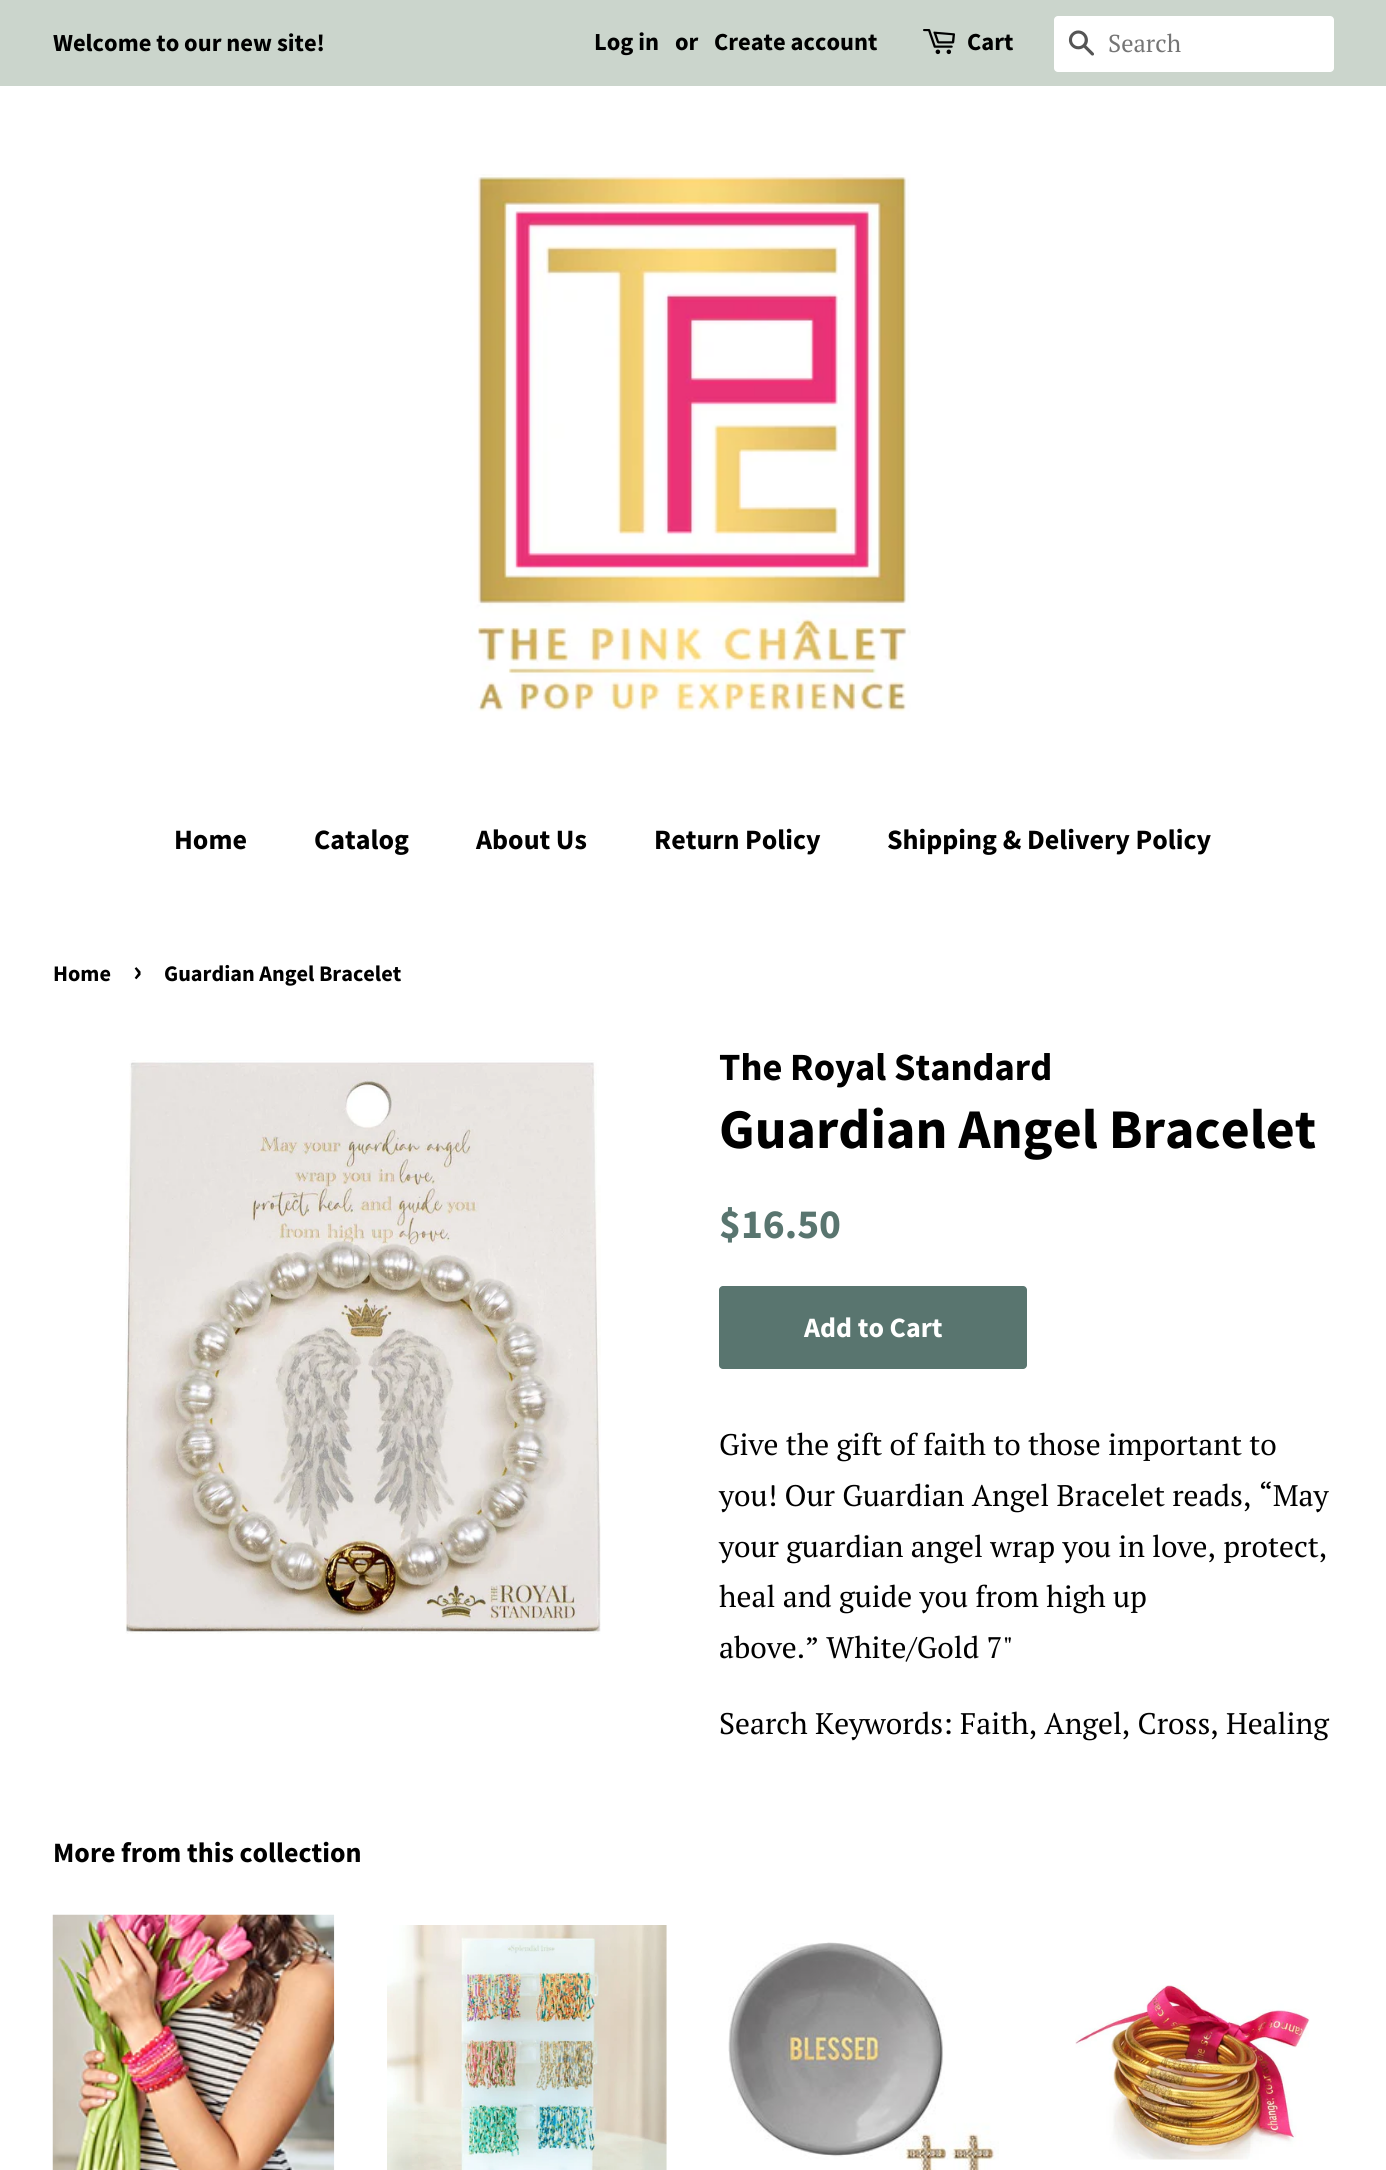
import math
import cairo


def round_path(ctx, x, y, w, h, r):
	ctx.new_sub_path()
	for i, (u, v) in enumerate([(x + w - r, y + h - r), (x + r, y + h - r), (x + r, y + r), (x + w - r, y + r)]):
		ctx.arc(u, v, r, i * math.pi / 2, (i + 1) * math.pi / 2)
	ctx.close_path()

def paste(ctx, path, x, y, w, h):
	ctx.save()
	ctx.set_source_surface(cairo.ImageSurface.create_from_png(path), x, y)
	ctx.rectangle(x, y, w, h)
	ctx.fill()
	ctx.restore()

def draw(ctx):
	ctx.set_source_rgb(1, 1, 1)
	ctx.paint()
	ctx.set_source_rgb(0.796, 0.835, 0.8)
	ctx.rectangle(0, 0, 1386, 86)
	ctx.fill()
	ctx.select_font_face('Source Sans Pro', cairo.FONT_SLANT_NORMAL, cairo.FONT_WEIGHT_BOLD)
	ctx.set_font_size(24.5)
	ctx.set_source_rgb(0, 0, 0)
	for x, y, s in [
		(53, 51, 'Welcome to our new site!'),
		(594, 50, 'Log in'),
		(675, 50, 'or'),
		(714, 50, 'Create account'),
	]:
		ctx.move_to(x, y)
		ctx.show_text(s)
	paste(ctx, 'media/1.png', 923, 29, 32, 26)
	ctx.move_to(967, 50)
	ctx.show_text('Cart')
	ctx.set_source_rgb(1, 1, 1)
	round_path(ctx, 1054, 16, 280, 56, 4)
	ctx.fill()
	paste(ctx, 'media/2.png', 1068, 30, 26, 26)
	ctx.select_font_face('PT Serif')
	ctx.set_source_rgb(0.459, 0.459, 0.459)
	ctx.move_to(1108, 52)
	ctx.show_text('Search')
	paste(ctx, 'media/3.png', 470, 174, 441, 538)
	ctx.select_font_face('Source Sans Pro', cairo.FONT_SLANT_NORMAL, cairo.FONT_WEIGHT_BOLD)
	ctx.set_font_size(28)
	ctx.set_source_rgb(0, 0, 0)
	for x, y, s in [
		(174, 849, 'Home'),
		(314, 849, 'Catalog'),
		(476, 849, 'About Us'),
		(654, 849, 'Return Policy'),
		(887, 849, 'Shipping & Delivery Policy'),
	]:
		ctx.move_to(x, y)
		ctx.show_text(s)
	ctx.set_font_size(22.25)
	ctx.move_to(53, 981)
	ctx.show_text('Home')
	ctx.set_font_size(31)
	ctx.move_to(133, 981)
	ctx.show_text('›')
	ctx.set_font_size(22.25)
	ctx.move_to(164, 981)
	ctx.show_text('Guardian Angel Bracelet')
	paste(ctx, 'media/4.png', 125, 1060, 476, 574)
	ctx.set_font_size(38.5)
	ctx.move_to(719, 1080)
	ctx.show_text('The Royal Standard')
	ctx.set_font_size(56)
	ctx.move_to(719, 1148)
	ctx.show_text('Guardian Angel Bracelet')
	ctx.set_font_size(41.5)
	ctx.set_source_rgb(0.349, 0.459, 0.435)
	ctx.move_to(719, 1238)
	ctx.show_text('$16.50')
	round_path(ctx, 719, 1286, 308, 83, 4)
	ctx.fill()
	ctx.set_font_size(28)
	ctx.set_source_rgb(1, 1, 1)
	ctx.move_to(804, 1337)
	ctx.show_text('Add to Cart')
	ctx.select_font_face('PT Serif')
	ctx.set_font_size(29.75)
	ctx.set_source_rgb(0, 0, 0)
	for x, y, s in [
		(719, 1455, 'Give the gift of faith to those important to'),
		(719, 1506, 'you! Our Guardian Angel Bracelet reads, “May'),
		(719, 1557, 'your guardian angel wrap you in love, protect,'),
		(719, 1607, 'heal and guide you from high up'),
		(719, 1658, 'above.” White/Gold 7"'),
		(719, 1734, 'Search Keywords: Faith, Angel, Cross, Healing'),
	]:
		ctx.move_to(x, y)
		ctx.show_text(s)
	ctx.select_font_face('Source Sans Pro', cairo.FONT_SLANT_NORMAL, cairo.FONT_WEIGHT_BOLD)
	ctx.set_font_size(28)
	ctx.move_to(53, 1862)
	ctx.show_text('More from this collection')
	paste(ctx, 'media/5.png', 52, 1914, 283, 256)
	paste(ctx, 'media/6.png', 387, 1925, 280, 245)
	paste(ctx, 'media/7.png', 728, 1942, 271, 228)
	paste(ctx, 'media/8.png', 1075, 1985, 235, 175)


surface = cairo.ImageSurface(cairo.FORMAT_RGB24, 1386, 2170)
ctx = cairo.Context(surface)
options = cairo.FontOptions()
options.set_hint_metrics(cairo.HINT_METRICS_OFF)
options.set_hint_style(cairo.HINT_STYLE_NONE)
ctx.set_font_options(options)
ctx.set_miter_limit(4)
draw(ctx)
surface.write_to_png('image.png')
